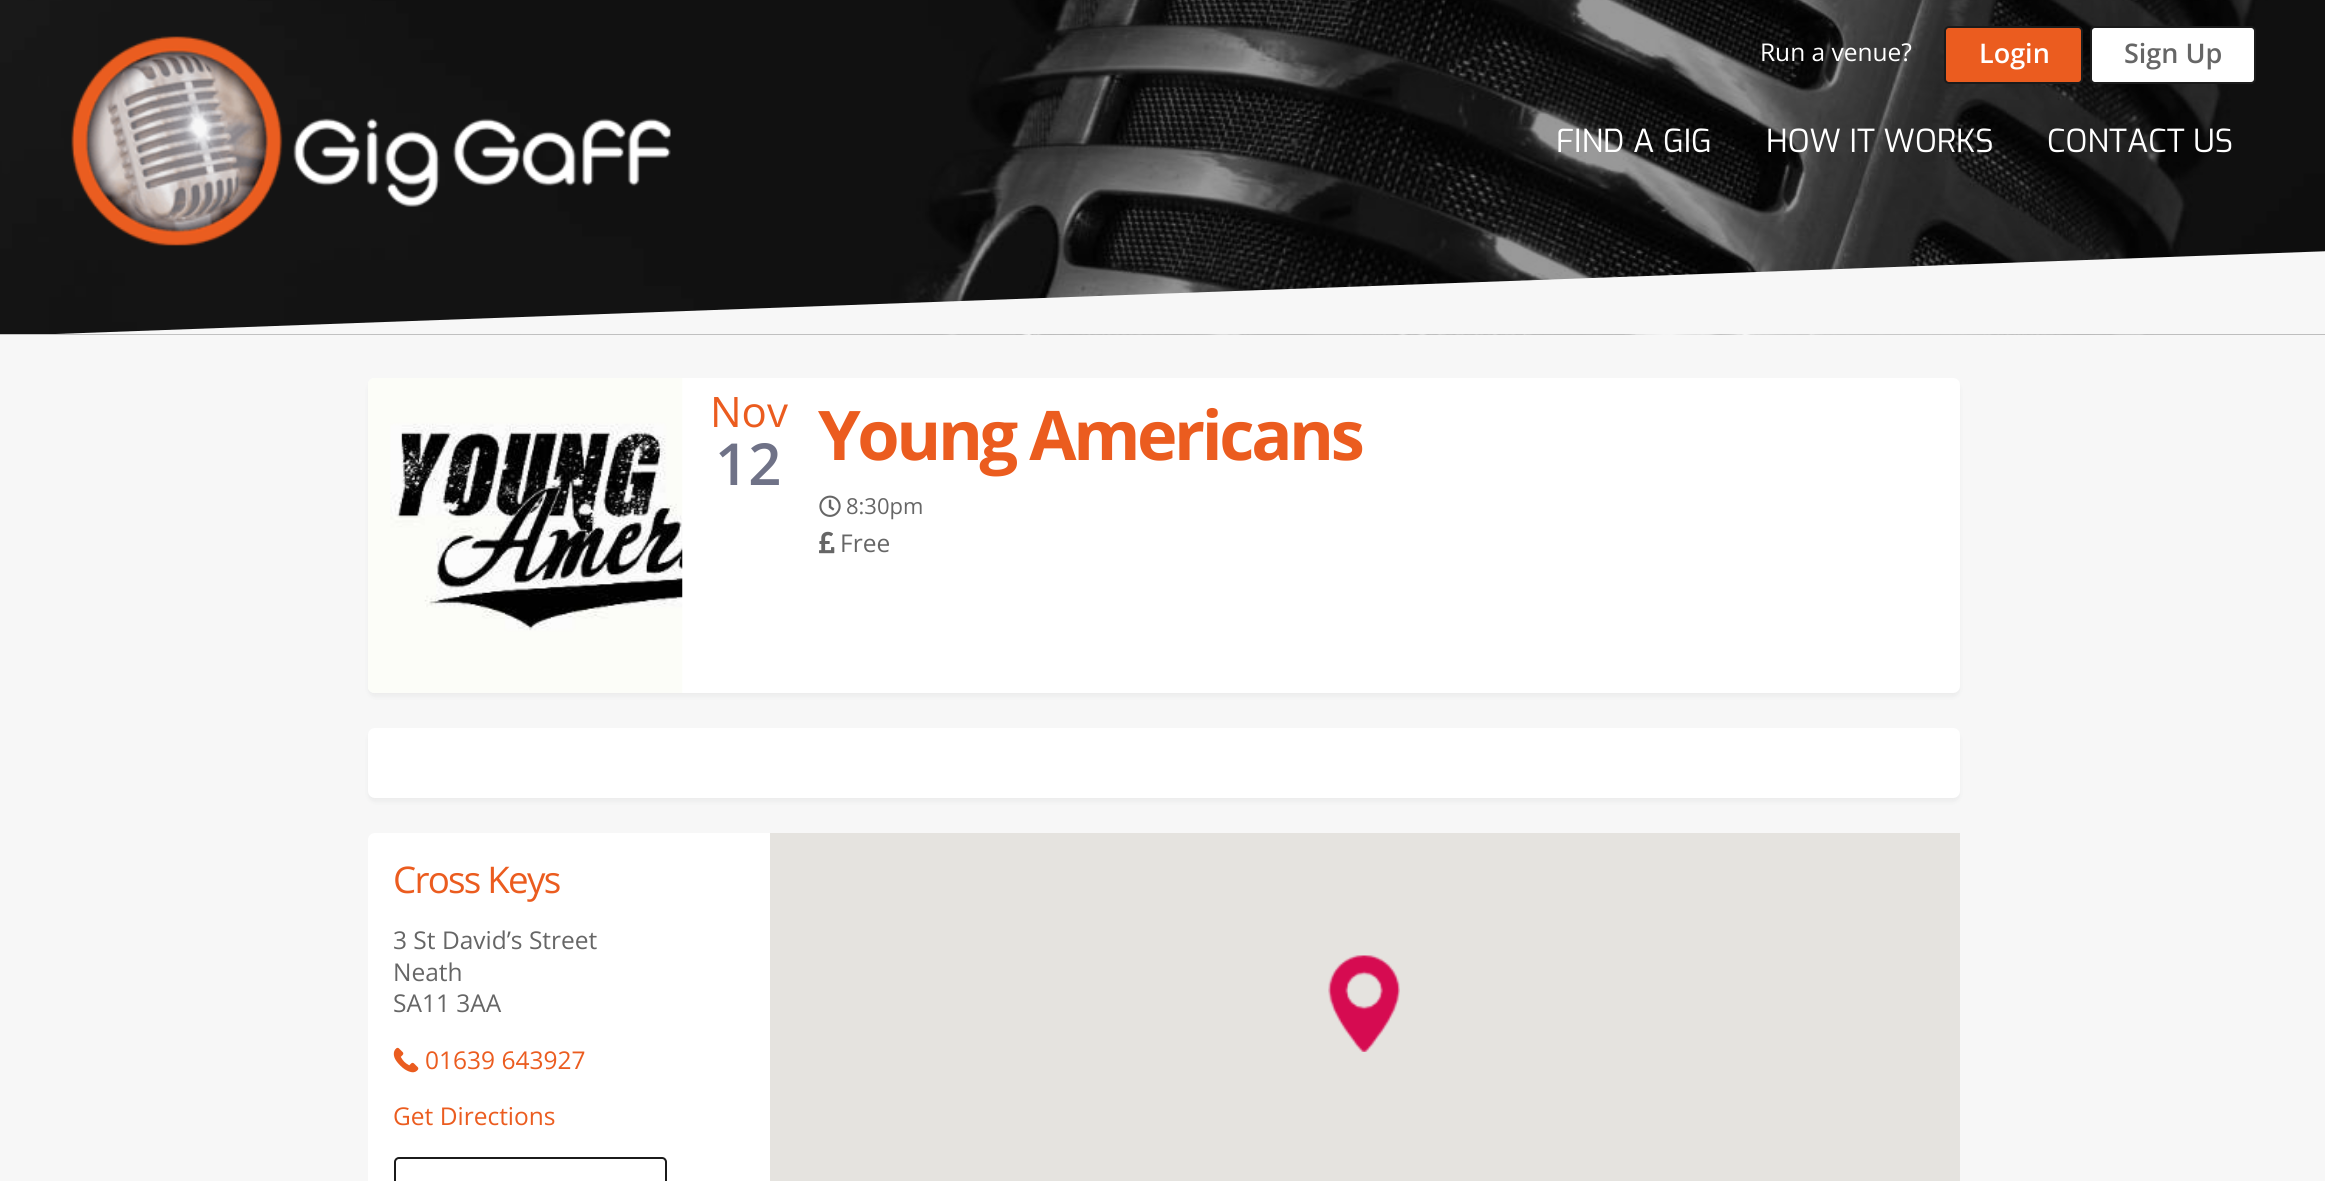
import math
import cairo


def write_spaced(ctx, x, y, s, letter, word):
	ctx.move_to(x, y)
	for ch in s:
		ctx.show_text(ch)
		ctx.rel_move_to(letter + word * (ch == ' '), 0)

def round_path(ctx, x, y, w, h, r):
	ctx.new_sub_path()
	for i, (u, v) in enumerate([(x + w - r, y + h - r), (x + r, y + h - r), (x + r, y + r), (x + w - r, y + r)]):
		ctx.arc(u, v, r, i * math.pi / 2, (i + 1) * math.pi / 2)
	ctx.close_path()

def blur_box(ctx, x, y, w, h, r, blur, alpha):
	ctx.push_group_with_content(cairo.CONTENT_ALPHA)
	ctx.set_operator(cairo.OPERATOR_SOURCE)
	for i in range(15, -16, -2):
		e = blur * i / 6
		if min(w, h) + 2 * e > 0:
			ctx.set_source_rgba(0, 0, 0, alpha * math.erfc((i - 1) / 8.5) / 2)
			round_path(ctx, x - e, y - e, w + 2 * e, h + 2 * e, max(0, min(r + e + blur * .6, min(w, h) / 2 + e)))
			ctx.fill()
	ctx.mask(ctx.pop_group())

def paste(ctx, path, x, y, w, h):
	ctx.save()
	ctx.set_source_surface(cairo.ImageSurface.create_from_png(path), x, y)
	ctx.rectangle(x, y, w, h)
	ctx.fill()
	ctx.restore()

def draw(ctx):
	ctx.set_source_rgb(0.965, 0.965, 0.965)
	ctx.paint()
	paste(ctx, 'media/1.png', 0, 0, 2325, 335)
	ctx.save()
	ctx.rectangle(0, 247, 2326, 87)
	ctx.clip()
	ctx.set_source_rgb(0.965, 0.965, 0.965)
	ctx.new_path()
	ctx.move_to(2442, 247)
	ctx.line_to(0, 336)
	ctx.line_to(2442, 336)
	ctx.fill()
	ctx.restore()
	paste(ctx, 'media/2.png', 71, 36, 600, 210)
	ctx.select_font_face('Open Sans')
	ctx.set_font_size(24.5)
	ctx.set_source_rgb(1, 1, 1)
	ctx.move_to(1760, 61)
	ctx.show_text('Run a venue?')
	ctx.set_source_rgb(0.918, 0.361, 0.122)
	round_path(ctx, 1945, 27, 137, 56, 4)
	ctx.fill_preserve()
	ctx.set_source_rgb(0.106, 0.106, 0.106)
	ctx.stroke()
	ctx.select_font_face('Open Sans SemiBold')
	ctx.set_font_size(27)
	ctx.set_source_rgb(1, 1, 1)
	ctx.move_to(1979, 63)
	ctx.show_text('Login')
	round_path(ctx, 2091, 27, 164, 56, 4)
	ctx.fill_preserve()
	ctx.set_source_rgb(0.106, 0.106, 0.106)
	ctx.stroke()
	ctx.set_source_rgb(0.4, 0.4, 0.4)
	ctx.move_to(2124, 63)
	ctx.show_text('Sign Up')
	ctx.select_font_face('Exo')
	ctx.set_font_size(31.75)
	ctx.set_source_rgb(1, 1, 1)
	for x, y, s in [
		(1556, 152, 'FIND A GIG'),
		(1766, 152, 'HOW IT WORKS'),
		(2047, 152, 'CONTACT US'),
	]:
		ctx.move_to(x, y)
		ctx.show_text(s)
	ctx.set_source_rgb(0.157, 0.173, 0.208)
	blur_box(ctx, 368, 382, 1592, 315, 7, 2, 0.05)
	ctx.set_source_rgb(1, 1, 1)
	round_path(ctx, 368, 378, 1592, 315, 7)
	ctx.fill()
	paste(ctx, 'media/3.png', 368, 378, 315, 315)
	ctx.select_font_face('Open Sans')
	ctx.set_font_size(42)
	ctx.set_source_rgb(0.918, 0.361, 0.122)
	ctx.move_to(710, 427)
	ctx.show_text('Nov')
	ctx.select_font_face('Open Sans SemiBold')
	ctx.set_font_size(58)
	ctx.set_source_rgb(0.435, 0.447, 0.529)
	ctx.move_to(715, 485)
	ctx.show_text('12')
	ctx.select_font_face('Open Sans', cairo.FONT_SLANT_NORMAL, cairo.FONT_WEIGHT_BOLD)
	ctx.set_font_size(68.5)
	ctx.set_source_rgb(0.918, 0.361, 0.122)
	write_spaced(ctx, 818, 460, 'Young Americans', -3.4, 0)
	paste(ctx, 'media/4.png', 819, 495, 22, 22)
	ctx.select_font_face('Open Sans')
	ctx.set_font_size(22)
	ctx.set_source_rgb(0.4, 0.4, 0.4)
	ctx.move_to(846, 514)
	ctx.show_text('8:30pm')
	paste(ctx, 'media/5.png', 819, 531, 16, 23)
	ctx.set_font_size(24.5)
	ctx.move_to(840, 552)
	ctx.show_text('Free')
	ctx.set_source_rgb(0.157, 0.173, 0.208)
	blur_box(ctx, 368, 732, 1592, 70, 7, 2, 0.05)
	ctx.set_source_rgb(1, 1, 1)
	round_path(ctx, 368, 728, 1592, 70, 7)
	ctx.fill()
	round_path(ctx, 368, 833, 1592, 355, 7)
	ctx.fill()
	ctx.set_font_size(36.75)
	ctx.set_source_rgb(0.918, 0.361, 0.122)
	write_spaced(ctx, 393, 893, 'Cross Keys', -1.75, 0)
	ctx.set_font_size(24.5)
	ctx.set_source_rgb(0.4, 0.4, 0.4)
	for x, y, s in [
		(393, 949, '3 St David’s Street'),
		(393, 981, 'Neath'),
		(393, 1012, 'SA11 3AA'),
	]:
		ctx.move_to(x, y)
		ctx.show_text(s)
	paste(ctx, 'media/6.png', 393, 1047, 26, 26)
	ctx.set_source_rgb(0.918, 0.361, 0.122)
	ctx.move_to(425, 1069)
	ctx.show_text('01639 643927')
	ctx.move_to(393, 1125)
	ctx.show_text('Get Directions')
	round_path(ctx, 395, 1158, 271, 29, 4)
	ctx.set_source_rgb(0.106, 0.106, 0.106)
	ctx.stroke()
	ctx.set_source_rgb(0.898, 0.89, 0.875)
	ctx.rectangle(770, 833, 1190, 348)
	ctx.fill()
	paste(ctx, 'media/7.png', 1328, 955, 72, 97)


surface = cairo.ImageSurface(cairo.FORMAT_RGB24, 2325, 1181)
ctx = cairo.Context(surface)
options = cairo.FontOptions()
options.set_hint_metrics(cairo.HINT_METRICS_OFF)
options.set_hint_style(cairo.HINT_STYLE_NONE)
ctx.set_font_options(options)
ctx.set_miter_limit(4)
draw(ctx)
surface.write_to_png('image.png')
